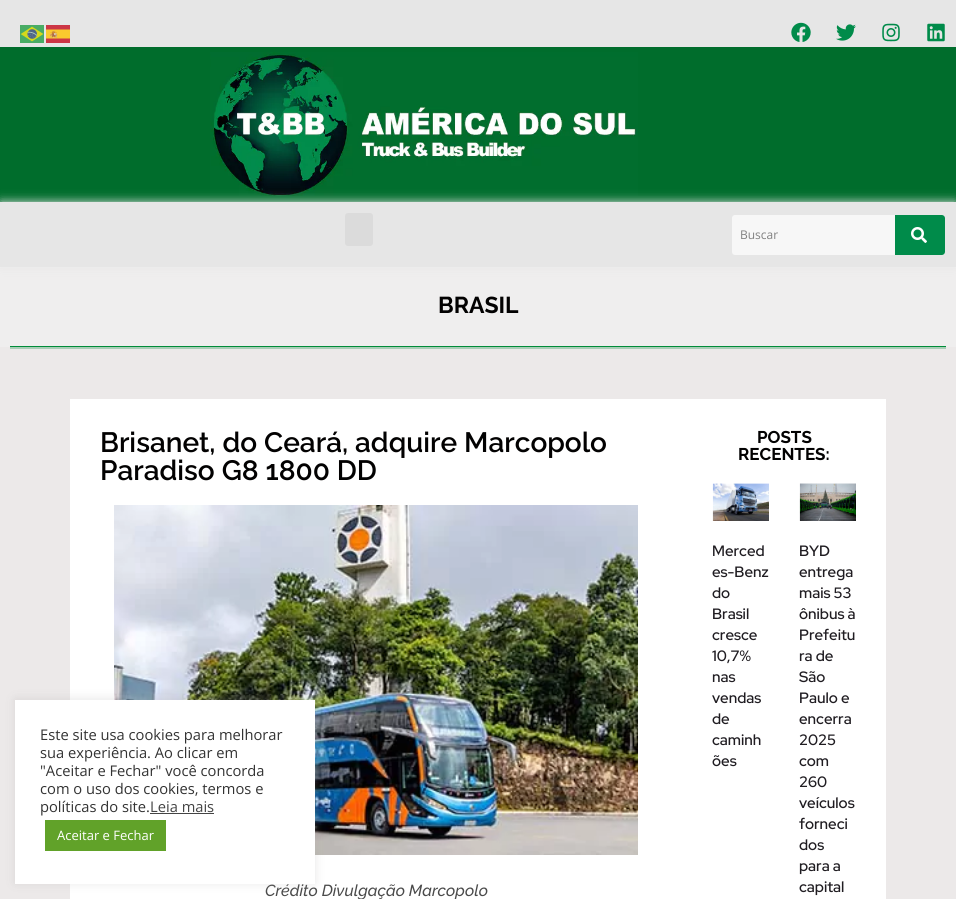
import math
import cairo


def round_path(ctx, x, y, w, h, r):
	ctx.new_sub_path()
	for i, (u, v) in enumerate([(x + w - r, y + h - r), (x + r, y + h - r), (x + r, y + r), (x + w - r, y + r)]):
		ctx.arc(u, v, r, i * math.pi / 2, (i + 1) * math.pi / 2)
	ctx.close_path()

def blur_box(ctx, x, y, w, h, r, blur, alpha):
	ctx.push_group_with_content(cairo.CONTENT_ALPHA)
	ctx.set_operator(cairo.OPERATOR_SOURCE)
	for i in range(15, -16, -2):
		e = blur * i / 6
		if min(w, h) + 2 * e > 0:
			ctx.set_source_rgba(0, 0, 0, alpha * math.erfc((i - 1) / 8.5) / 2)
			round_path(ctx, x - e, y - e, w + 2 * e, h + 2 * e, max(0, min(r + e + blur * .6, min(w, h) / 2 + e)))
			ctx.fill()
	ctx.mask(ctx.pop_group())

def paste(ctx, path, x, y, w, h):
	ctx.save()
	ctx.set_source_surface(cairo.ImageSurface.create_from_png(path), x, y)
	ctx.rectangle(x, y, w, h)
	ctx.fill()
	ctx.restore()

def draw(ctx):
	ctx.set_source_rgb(0.937, 0.933, 0.933)
	ctx.paint()
	ctx.set_source_rgb(0.922, 0.914, 0.914)
	ctx.rectangle(0, 347, 956, 552)
	ctx.fill()
	ctx.set_source_rgb(0.945, 0.945, 0.945)
	ctx.rectangle(0, 267, 956, 1)
	ctx.fill()
	ctx.set_source_rgb(0.902, 0.902, 0.902)
	ctx.rectangle(0, 0, 956, 267)
	ctx.fill()
	paste(ctx, 'media/1.png', 20, 25, 24, 18)
	paste(ctx, 'media/2.png', 46, 25, 24, 18)
	paste(ctx, 'media/3.png', 791, 22, 20, 20)
	paste(ctx, 'media/4.png', 836, 24, 20, 17)
	paste(ctx, 'media/5.png', 882, 23, 18, 19)
	paste(ctx, 'media/6.png', 927, 23, 18, 19)
	ctx.set_source_rgb(0, 0.427, 0.173)
	ctx.rectangle(0, 47, 956, 155)
	ctx.fill()
	paste(ctx, 'media/7.png', 210, 52, 428, 144)
	ctx.save()
	ctx.set_fill_rule(cairo.FILL_RULE_EVEN_ODD)
	ctx.new_path()
	ctx.move_to(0, 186)
	ctx.line_to(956, 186)
	ctx.line_to(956, 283)
	ctx.line_to(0, 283)
	ctx.close_path()
	ctx.move_to(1, 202)
	ctx.line_to(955, 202)
	ctx.curve_to(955.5, 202, 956, 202.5, 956, 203)
	ctx.line_to(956, 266)
	ctx.curve_to(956, 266.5, 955.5, 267, 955, 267)
	ctx.line_to(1, 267)
	ctx.curve_to(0.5, 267, 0, 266.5, 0, 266)
	ctx.line_to(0, 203)
	ctx.curve_to(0, 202.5, 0.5, 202, 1, 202)
	ctx.close_path()
	ctx.clip()
	ctx.set_source_rgb(0.902, 0.902, 0.902)
	blur_box(ctx, 0, 202, 956, 65, 1, 5, 1)
	ctx.restore()
	ctx.set_source_rgb(0.859, 0.859, 0.859)
	round_path(ctx, 345, 213, 28, 33, 3)
	ctx.fill()
	ctx.set_source_rgb(0.965, 0.965, 0.965)
	round_path(ctx, 732, 215, 213, 40, 3)
	ctx.fill()
	ctx.select_font_face('Open Sans')
	ctx.set_font_size(12)
	ctx.set_source_rgb(0.506, 0.506, 0.506)
	ctx.move_to(740, 239)
	ctx.show_text('Buscar')
	ctx.set_source_rgb(0, 0.545, 0.29)
	ctx.new_path()
	ctx.move_to(895, 215)
	ctx.line_to(942, 215)
	ctx.curve_to(943.5, 215, 945, 216.5, 945, 218)
	ctx.line_to(945, 252)
	ctx.curve_to(945, 253.5, 943.5, 255, 942, 255)
	ctx.line_to(895, 255)
	ctx.close_path()
	ctx.fill()
	paste(ctx, 'media/8.png', 911, 227, 16, 16)
	ctx.select_font_face('Raleway', cairo.FONT_SLANT_NORMAL, cairo.FONT_WEIGHT_BOLD)
	ctx.set_font_size(23)
	ctx.set_source_rgb(0.008, 0.004, 0.004)
	ctx.move_to(438, 313)
	ctx.show_text('BRASIL')
	ctx.set_source_rgb(0, 0.549, 0.224)
	ctx.rectangle(10, 346, 936, 1)
	ctx.fill()
	ctx.set_source_rgb(0.659, 0.808, 0.714)
	ctx.rectangle(10, 347, 936, 2)
	ctx.fill()
	ctx.set_source_rgb(1, 1, 1)
	ctx.rectangle(70, 399, 816, 500)
	ctx.fill()
	ctx.select_font_face('Raleway SemiBold')
	ctx.set_font_size(28)
	ctx.set_source_rgb(0.008, 0.004, 0.004)
	ctx.move_to(100, 452)
	ctx.show_text('Brisanet, do Ceará, adquire Marcopolo')
	ctx.move_to(100, 480)
	ctx.show_text('Paradiso G8 1800 DD')
	paste(ctx, 'media/9.png', 114, 505, 524, 350)
	ctx.select_font_face('Raleway Medium', cairo.FONT_SLANT_ITALIC)
	ctx.set_font_size(16)
	ctx.set_source_rgb(0.29, 0.29, 0.29)
	ctx.move_to(265, 896)
	ctx.show_text('Crédito Divulgação Marcopolo')
	ctx.select_font_face('Raleway', cairo.FONT_SLANT_NORMAL, cairo.FONT_WEIGHT_BOLD)
	ctx.set_font_size(17)
	ctx.set_source_rgb(0.008, 0.004, 0.004)
	ctx.move_to(757, 443)
	ctx.show_text('POSTS')
	ctx.move_to(738, 460)
	ctx.show_text('RECENTES:')
	paste(ctx, 'media/10.png', 712, 483, 57, 38)
	ctx.select_font_face('Red Hat Display SemiBold')
	ctx.set_font_size(15)
	ctx.set_source_rgb(0.125, 0.114, 0.133)
	for x, y, s in [
		(712, 556, 'Merced'),
		(712, 577, 'es-Benz'),
		(712, 598, 'do'),
		(712, 619, 'Brasil'),
		(712, 640, 'cresce'),
		(712, 661, '10,7%'),
		(712, 682, 'nas'),
		(712, 703, 'vendas'),
		(712, 724, 'de'),
		(712, 745, 'caminh'),
		(712, 766, 'ões'),
	]:
		ctx.move_to(x, y)
		ctx.show_text(s)
	paste(ctx, 'media/11.png', 799, 483, 57, 38)
	for x, y, s in [
		(799, 556, 'BYD'),
		(799, 577, 'entrega'),
		(799, 598, 'mais 53'),
		(799, 619, 'ônibus à'),
		(799, 640, 'Prefeitu'),
		(799, 661, 'ra de'),
		(799, 682, 'São'),
		(799, 703, 'Paulo e'),
		(799, 724, 'encerra'),
		(799, 745, '2025'),
		(799, 766, 'com'),
		(799, 787, '260'),
		(799, 808, 'veículos'),
		(799, 829, 'forneci'),
		(799, 850, 'dos'),
		(799, 871, 'para a'),
		(799, 892, 'capital'),
	]:
		ctx.move_to(x, y)
		ctx.show_text(s)
	ctx.set_source_rgb(0.675, 0.671, 0.671)
	blur_box(ctx, 15, 699, 300, 184, 0, 5, 0.3)
	ctx.set_source_rgb(1, 1, 1)
	ctx.rectangle(15, 700, 300, 184)
	ctx.fill()
	ctx.select_font_face('Open Sans')
	ctx.set_font_size(14.7)
	ctx.set_source_rgb(0.2, 0.2, 0.2)
	for x, y, s in [
		(40, 740, 'Este site usa cookies para melhorar'),
		(40, 758, 'sua experiência. Ao clicar em'),
		(40, 776, '"Aceitar e Fechar" você concorda'),
		(40, 794, 'com o uso dos cookies, termos e'),
		(40, 812, 'políticas do site.'),
	]:
		ctx.move_to(x, y)
		ctx.show_text(s)
	ctx.set_source_rgb(0.267, 0.267, 0.267)
	ctx.move_to(150, 812)
	ctx.show_text('Leia mais')
	ctx.rectangle(150, 813, 64, 1)
	ctx.fill()
	ctx.set_source_rgb(0.38, 0.635, 0.161)
	ctx.rectangle(45, 820, 121, 31)
	ctx.fill()
	ctx.set_font_size(13)
	ctx.set_source_rgb(1, 1, 1)
	ctx.move_to(57, 840)
	ctx.show_text('Aceitar e Fechar')


surface = cairo.ImageSurface(cairo.FORMAT_RGB24, 956, 899)
ctx = cairo.Context(surface)
options = cairo.FontOptions()
options.set_hint_metrics(cairo.HINT_METRICS_OFF)
options.set_hint_style(cairo.HINT_STYLE_NONE)
ctx.set_font_options(options)
ctx.set_miter_limit(4)
draw(ctx)
surface.write_to_png('image.png')
